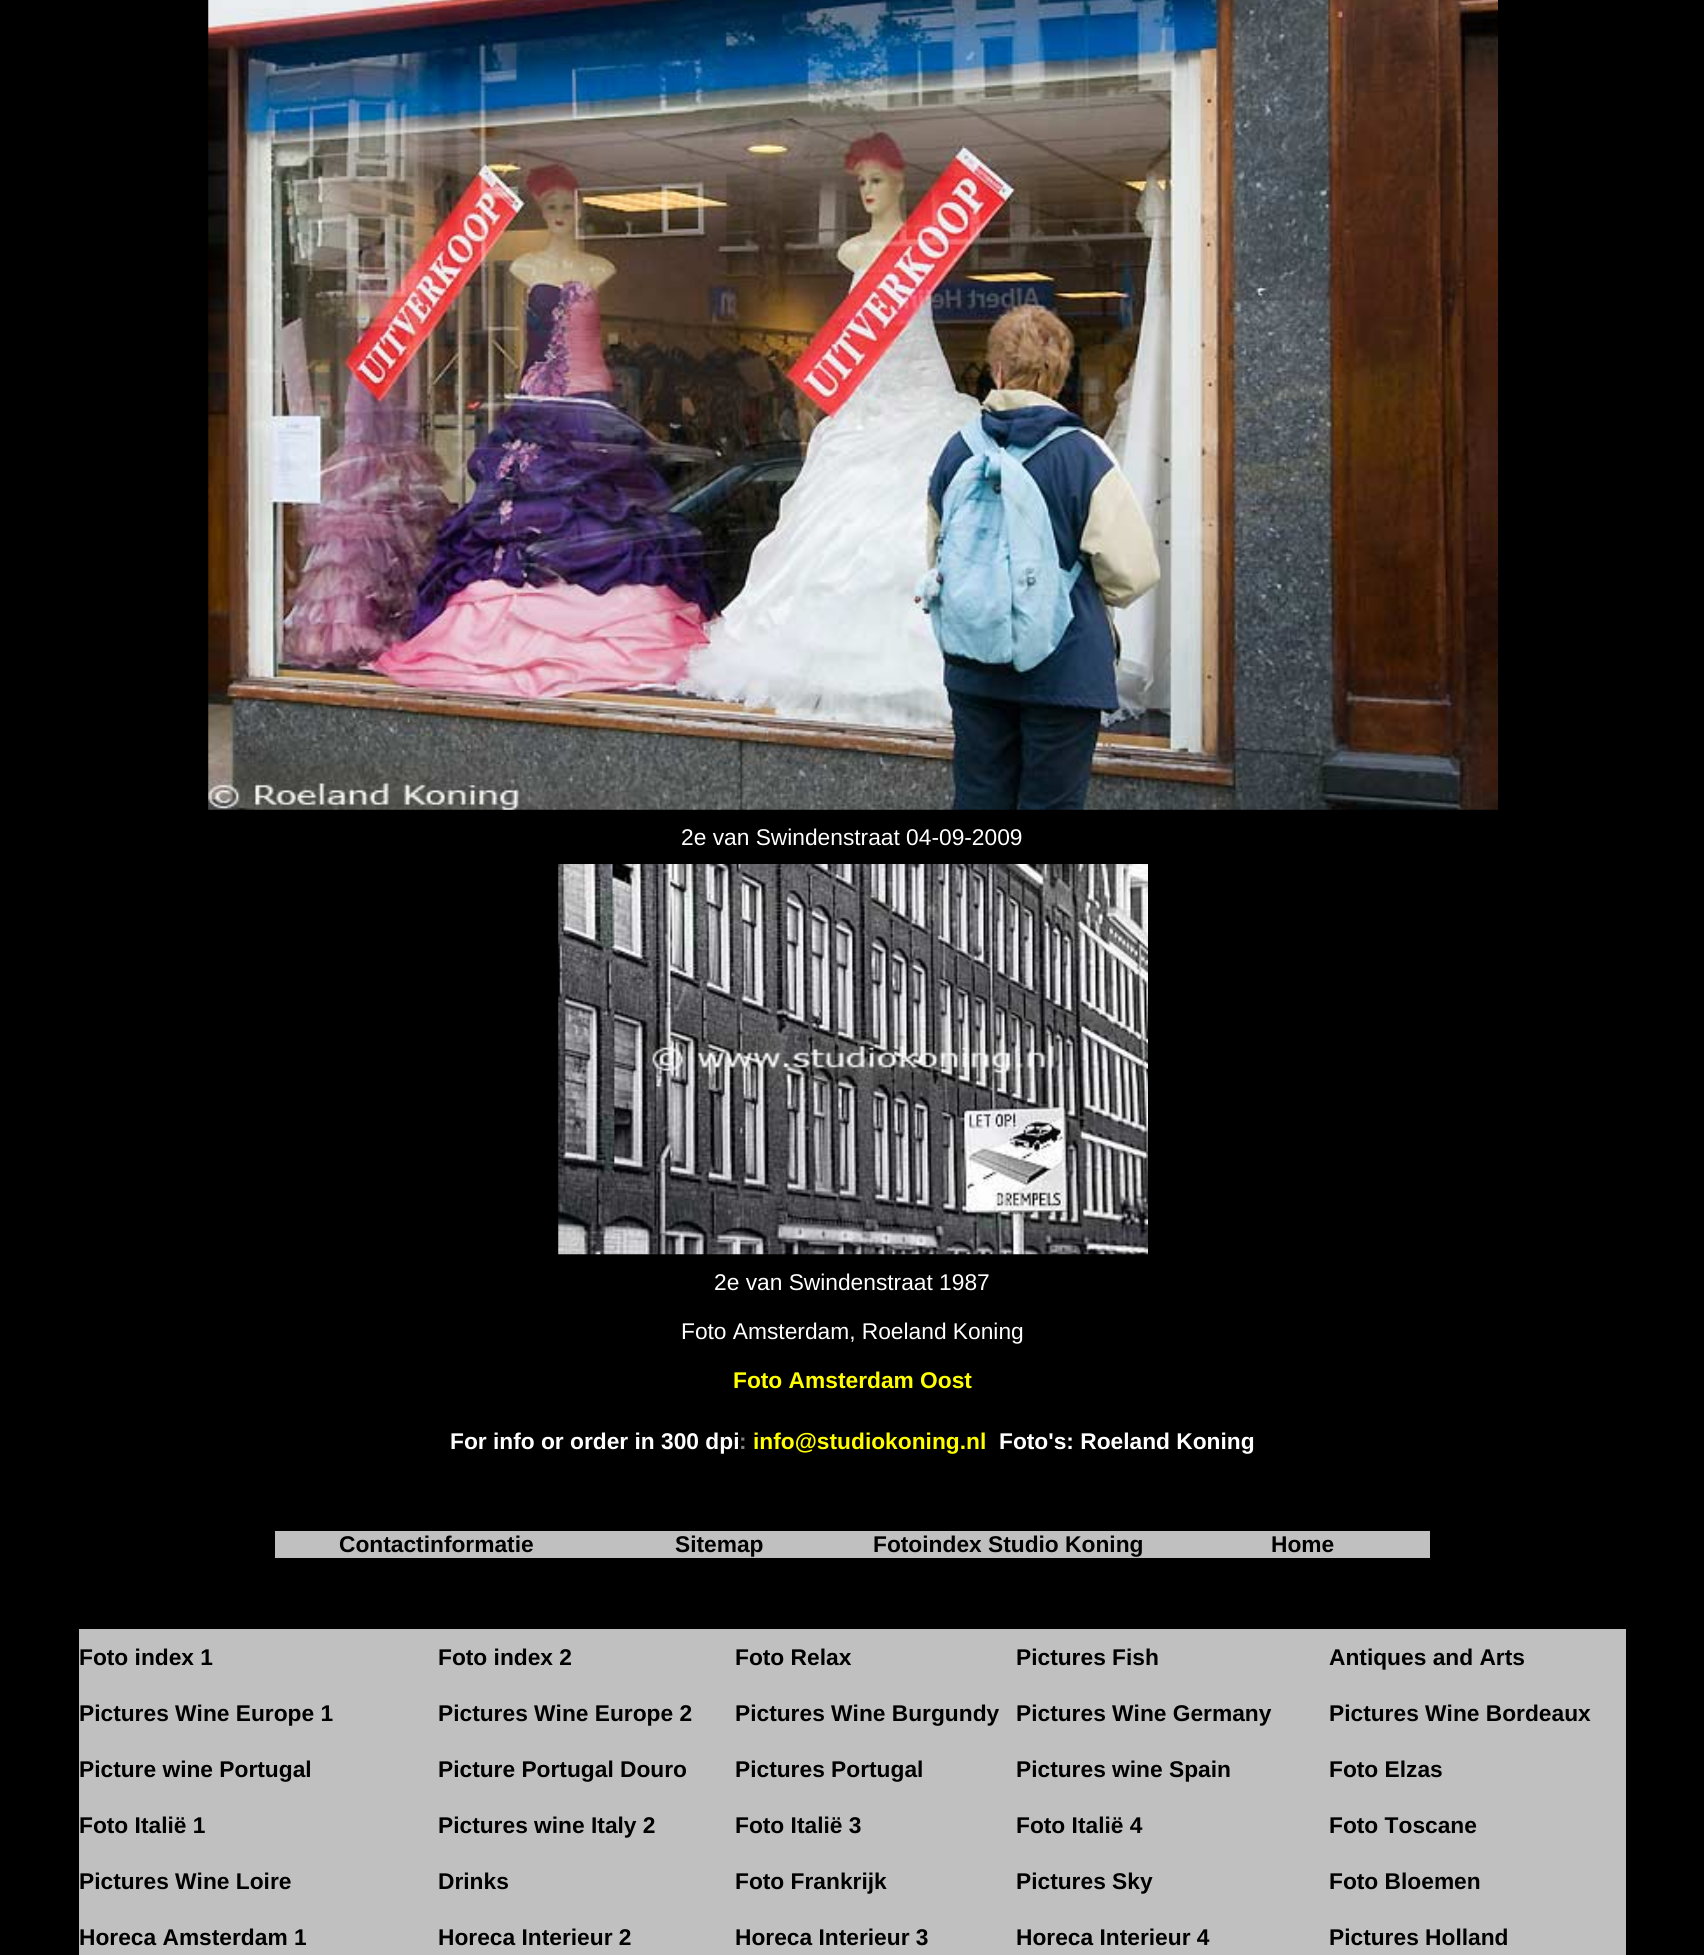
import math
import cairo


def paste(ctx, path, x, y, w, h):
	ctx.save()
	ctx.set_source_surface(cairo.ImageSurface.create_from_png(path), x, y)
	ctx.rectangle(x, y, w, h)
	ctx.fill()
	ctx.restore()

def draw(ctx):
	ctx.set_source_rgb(0, 0, 0)
	ctx.paint()
	paste(ctx, 'media/1.png', 208, 0, 1290, 810)
	ctx.select_font_face('Liberation Sans')
	ctx.set_font_size(22.75)
	ctx.set_source_rgb(1, 1, 1)
	ctx.move_to(681, 845)
	ctx.show_text('2e van Swindenstraat 04-09-2009')
	paste(ctx, 'media/2.png', 558, 864, 590, 391)
	ctx.move_to(714, 1290)
	ctx.show_text('2e van Swindenstraat 1987')
	ctx.move_to(681, 1339)
	ctx.show_text('Foto Amsterdam, Roeland Koning')
	ctx.select_font_face('Liberation Sans', cairo.FONT_SLANT_NORMAL, cairo.FONT_WEIGHT_BOLD)
	ctx.set_source_rgb(1, 1, 0)
	ctx.move_to(733, 1388)
	ctx.show_text('Foto Amsterdam Oost')
	ctx.set_source_rgb(1, 1, 1)
	ctx.move_to(450, 1449)
	ctx.show_text('For info or order in 300 dpi')
	ctx.set_source_rgb(0.502, 0.502, 0.502)
	ctx.move_to(739, 1449)
	ctx.show_text(':')
	ctx.set_source_rgb(1, 1, 0)
	ctx.move_to(753, 1449)
	ctx.show_text('info@studiokoning.nl')
	ctx.set_source_rgb(1, 1, 1)
	ctx.move_to(999, 1449)
	ctx.show_text('Foto\'s: Roeland Koning')
	ctx.set_source_rgb(0.753, 0.753, 0.753)
	ctx.rectangle(275, 1531, 1155, 27)
	ctx.fill()
	ctx.set_source_rgb(0, 0, 0)
	for x, y, s in [
		(339, 1552, 'Contactinformatie'),
		(675, 1552, 'Sitemap'),
		(873, 1552, 'Fotoindex Studio Koning'),
		(1271, 1552, 'Home'),
	]:
		ctx.move_to(x, y)
		ctx.show_text(s)
	ctx.set_source_rgb(0.753, 0.753, 0.753)
	ctx.rectangle(79, 1629, 1547, 56)
	ctx.fill()
	ctx.set_source_rgb(0, 0, 0)
	for x, y, s in [
		(79, 1665, 'Foto index 1'),
		(438, 1665, 'Foto index 2'),
		(735, 1665, 'Foto Relax'),
		(1016, 1665, 'Pictures Fish'),
		(1329, 1665, 'Antiques and Arts'),
	]:
		ctx.move_to(x, y)
		ctx.show_text(s)
	ctx.set_source_rgb(0.753, 0.753, 0.753)
	ctx.rectangle(79, 1685, 1547, 56)
	ctx.fill()
	ctx.set_source_rgb(0, 0, 0)
	for x, y, s in [
		(79, 1721, 'Pictures Wine Europe 1'),
		(438, 1721, 'Pictures Wine Europe 2'),
		(735, 1721, 'Pictures Wine Burgundy'),
		(1016, 1721, 'Pictures Wine Germany'),
		(1329, 1721, 'Pictures Wine Bordeaux'),
	]:
		ctx.move_to(x, y)
		ctx.show_text(s)
	ctx.set_source_rgb(0.753, 0.753, 0.753)
	ctx.rectangle(79, 1741, 1547, 56)
	ctx.fill()
	ctx.set_source_rgb(0, 0, 0)
	for x, y, s in [
		(79, 1777, 'Picture wine Portugal'),
		(438, 1777, 'Picture Portugal Douro'),
		(735, 1777, 'Pictures Portugal'),
		(1016, 1777, 'Pictures wine Spain'),
		(1329, 1777, 'Foto Elzas'),
	]:
		ctx.move_to(x, y)
		ctx.show_text(s)
	ctx.set_source_rgb(0.753, 0.753, 0.753)
	ctx.rectangle(79, 1797, 1547, 56)
	ctx.fill()
	ctx.set_source_rgb(0, 0, 0)
	for x, y, s in [
		(79, 1833, 'Foto Italië 1'),
		(438, 1833, 'Pictures wine Italy 2'),
		(735, 1833, 'Foto Italië 3'),
		(1016, 1833, 'Foto Italië 4'),
		(1329, 1833, 'Foto Toscane'),
	]:
		ctx.move_to(x, y)
		ctx.show_text(s)
	ctx.set_source_rgb(0.753, 0.753, 0.753)
	ctx.rectangle(79, 1853, 1547, 56)
	ctx.fill()
	ctx.set_source_rgb(0, 0, 0)
	for x, y, s in [
		(79, 1889, 'Pictures Wine Loire'),
		(438, 1889, 'Drinks'),
		(735, 1889, 'Foto Frankrijk'),
		(1016, 1889, 'Pictures Sky'),
		(1329, 1889, 'Foto Bloemen'),
	]:
		ctx.move_to(x, y)
		ctx.show_text(s)
	ctx.set_source_rgb(0.753, 0.753, 0.753)
	ctx.rectangle(79, 1909, 1547, 46)
	ctx.fill()
	ctx.set_source_rgb(0, 0, 0)
	for x, y, s in [
		(79, 1945, 'Horeca Amsterdam 1'),
		(438, 1945, 'Horeca Interieur 2'),
		(735, 1945, 'Horeca Interieur 3'),
		(1016, 1945, 'Horeca Interieur 4'),
		(1329, 1945, 'Pictures Holland'),
	]:
		ctx.move_to(x, y)
		ctx.show_text(s)


surface = cairo.ImageSurface(cairo.FORMAT_RGB24, 1704, 1955)
ctx = cairo.Context(surface)
options = cairo.FontOptions()
options.set_hint_metrics(cairo.HINT_METRICS_OFF)
options.set_hint_style(cairo.HINT_STYLE_NONE)
ctx.set_font_options(options)
ctx.set_miter_limit(4)
draw(ctx)
surface.write_to_png('image.png')
